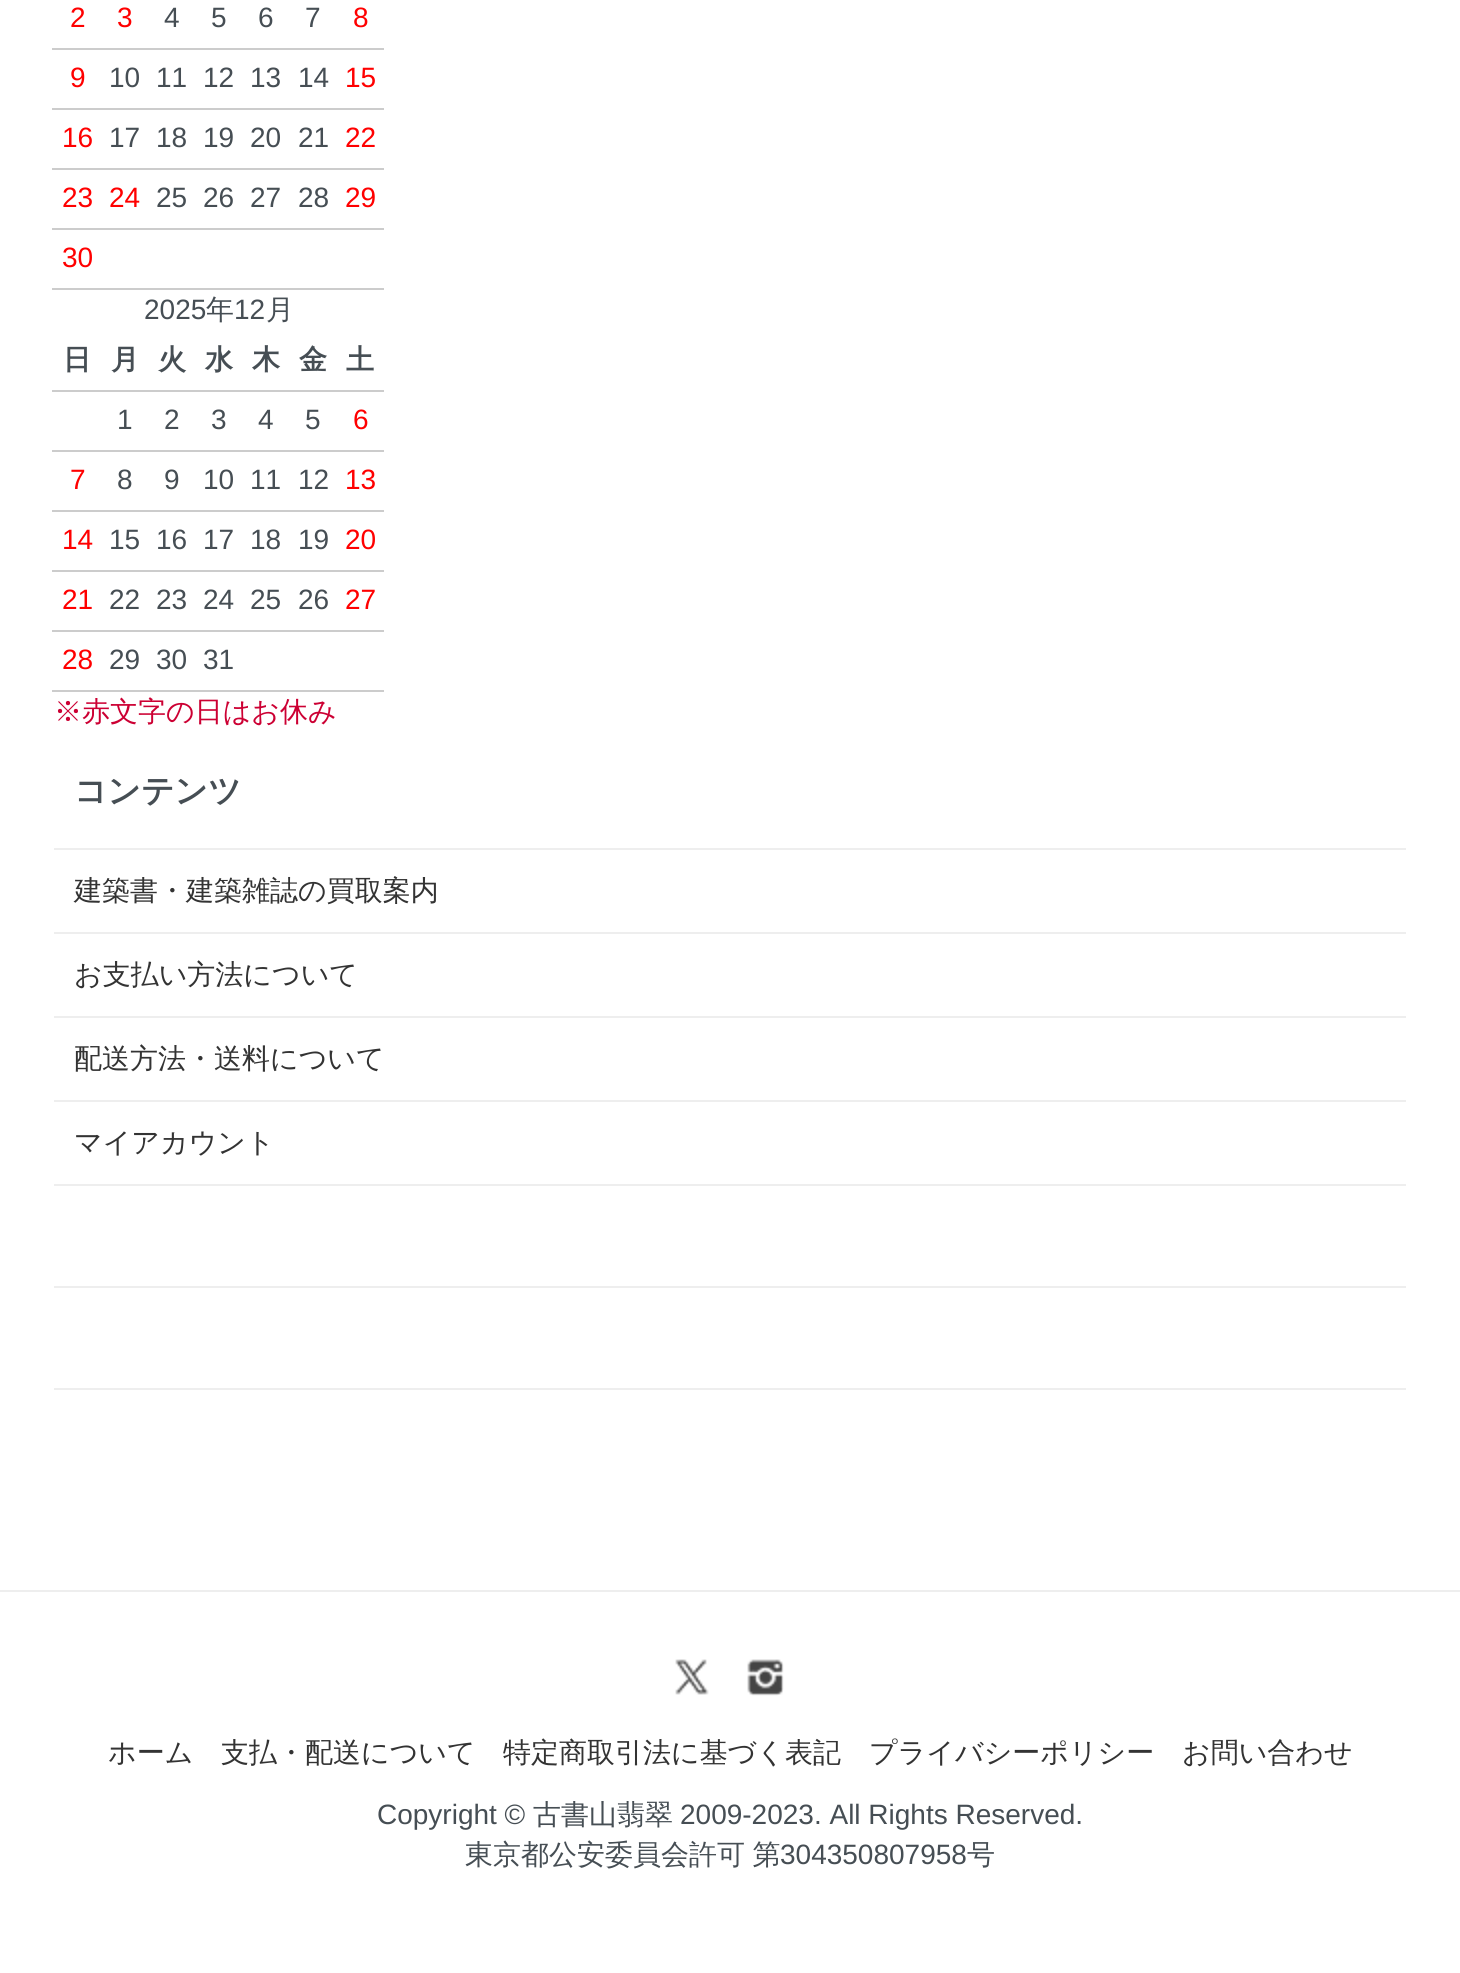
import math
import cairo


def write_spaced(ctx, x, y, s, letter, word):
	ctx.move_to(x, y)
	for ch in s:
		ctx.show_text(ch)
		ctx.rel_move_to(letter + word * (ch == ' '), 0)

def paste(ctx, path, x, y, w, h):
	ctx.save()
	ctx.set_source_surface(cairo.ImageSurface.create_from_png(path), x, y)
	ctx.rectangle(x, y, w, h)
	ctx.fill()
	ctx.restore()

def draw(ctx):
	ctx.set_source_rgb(1, 1, 1)
	ctx.paint()
	ctx.set_source_rgb(0.933, 0.933, 0.933)
	ctx.rectangle(54, 1388, 1352, 2)
	ctx.fill()
	ctx.rectangle(54, 1286, 1352, 2)
	ctx.fill()
	ctx.select_font_face('Liberation Sans')
	ctx.set_font_size(28)
	ctx.set_source_rgb(1, 0, 0)
	ctx.move_to(70, 27)
	ctx.show_text('2')
	ctx.move_to(117, 27)
	ctx.show_text('3')
	ctx.set_source_rgb(0.275, 0.306, 0.329)
	for x, y, s in [
		(164, 27, '4'),
		(211, 27, '5'),
		(258, 27, '6'),
		(305, 27, '7'),
	]:
		ctx.move_to(x, y)
		ctx.show_text(s)
	ctx.set_source_rgb(0.8, 0.8, 0.8)
	ctx.rectangle(52, 48, 332, 2)
	ctx.fill()
	ctx.set_source_rgb(1, 0, 0)
	ctx.move_to(353, 27)
	ctx.show_text('8')
	ctx.move_to(70, 87)
	ctx.show_text('9')
	ctx.set_source_rgb(0.275, 0.306, 0.329)
	for x, y, s in [
		(109, 87, '10'),
		(156, 87, '11'),
		(203, 87, '12'),
		(250, 87, '13'),
		(298, 87, '14'),
	]:
		ctx.move_to(x, y)
		ctx.show_text(s)
	ctx.set_source_rgb(0.8, 0.8, 0.8)
	ctx.rectangle(52, 108, 332, 2)
	ctx.fill()
	ctx.set_source_rgb(1, 0, 0)
	ctx.move_to(345, 87)
	ctx.show_text('15')
	ctx.move_to(62, 147)
	ctx.show_text('16')
	ctx.set_source_rgb(0.275, 0.306, 0.329)
	for x, y, s in [
		(109, 147, '17'),
		(156, 147, '18'),
		(203, 147, '19'),
		(250, 147, '20'),
		(298, 147, '21'),
	]:
		ctx.move_to(x, y)
		ctx.show_text(s)
	ctx.set_source_rgb(0.8, 0.8, 0.8)
	ctx.rectangle(52, 168, 332, 2)
	ctx.fill()
	ctx.set_source_rgb(1, 0, 0)
	for x, y, s in [
		(345, 147, '22'),
		(62, 207, '23'),
		(109, 207, '24'),
	]:
		ctx.move_to(x, y)
		ctx.show_text(s)
	ctx.set_source_rgb(0.275, 0.306, 0.329)
	for x, y, s in [
		(156, 207, '25'),
		(203, 207, '26'),
		(250, 207, '27'),
		(298, 207, '28'),
	]:
		ctx.move_to(x, y)
		ctx.show_text(s)
	ctx.set_source_rgb(0.8, 0.8, 0.8)
	ctx.rectangle(52, 228, 332, 2)
	ctx.fill()
	ctx.set_source_rgb(1, 0, 0)
	ctx.move_to(345, 207)
	ctx.show_text('29')
	ctx.move_to(62, 267)
	ctx.show_text('30')
	ctx.set_source_rgb(0.8, 0.8, 0.8)
	ctx.rectangle(52, 288, 332, 2)
	ctx.fill()
	ctx.set_source_rgb(0.275, 0.306, 0.329)
	ctx.move_to(144, 319)
	ctx.show_text('2025')
	ctx.select_font_face('WenQuanYi Zen Hei Medium')
	ctx.move_to(206, 319)
	ctx.show_text('年')
	ctx.select_font_face('Liberation Sans')
	ctx.move_to(234, 319)
	ctx.show_text('12')
	ctx.select_font_face('WenQuanYi Zen Hei Medium')
	ctx.move_to(266, 319)
	ctx.show_text('月')
	ctx.select_font_face('WenQuanYi Zen Hei', cairo.FONT_SLANT_NORMAL, cairo.FONT_WEIGHT_BOLD)
	for x, y, s in [
		(63, 369, '日'),
		(111, 369, '月'),
		(158, 369, '火'),
		(205, 369, '水'),
		(252, 369, '木'),
		(299, 369, '金'),
	]:
		ctx.move_to(x, y)
		ctx.show_text(s)
	ctx.set_source_rgb(0.8, 0.8, 0.8)
	ctx.rectangle(52, 390, 332, 2)
	ctx.fill()
	ctx.set_source_rgb(0.275, 0.306, 0.329)
	ctx.move_to(346, 369)
	ctx.show_text('土')
	ctx.select_font_face('Liberation Sans')
	for x, y, s in [
		(117, 429, '1'),
		(164, 429, '2'),
		(211, 429, '3'),
		(258, 429, '4'),
		(305, 429, '5'),
	]:
		ctx.move_to(x, y)
		ctx.show_text(s)
	ctx.set_source_rgb(0.8, 0.8, 0.8)
	ctx.rectangle(52, 450, 332, 2)
	ctx.fill()
	ctx.set_source_rgb(1, 0, 0)
	ctx.move_to(353, 429)
	ctx.show_text('6')
	ctx.move_to(70, 489)
	ctx.show_text('7')
	ctx.set_source_rgb(0.275, 0.306, 0.329)
	for x, y, s in [
		(117, 489, '8'),
		(164, 489, '9'),
		(203, 489, '10'),
		(250, 489, '11'),
		(298, 489, '12'),
	]:
		ctx.move_to(x, y)
		ctx.show_text(s)
	ctx.set_source_rgb(0.8, 0.8, 0.8)
	ctx.rectangle(52, 510, 332, 2)
	ctx.fill()
	ctx.set_source_rgb(1, 0, 0)
	ctx.move_to(345, 489)
	ctx.show_text('13')
	ctx.move_to(62, 549)
	ctx.show_text('14')
	ctx.set_source_rgb(0.275, 0.306, 0.329)
	for x, y, s in [
		(109, 549, '15'),
		(156, 549, '16'),
		(203, 549, '17'),
		(250, 549, '18'),
		(298, 549, '19'),
	]:
		ctx.move_to(x, y)
		ctx.show_text(s)
	ctx.set_source_rgb(0.8, 0.8, 0.8)
	ctx.rectangle(52, 570, 332, 2)
	ctx.fill()
	ctx.set_source_rgb(1, 0, 0)
	ctx.move_to(345, 549)
	ctx.show_text('20')
	ctx.move_to(62, 609)
	ctx.show_text('21')
	ctx.set_source_rgb(0.275, 0.306, 0.329)
	for x, y, s in [
		(109, 609, '22'),
		(156, 609, '23'),
		(203, 609, '24'),
		(250, 609, '25'),
		(298, 609, '26'),
	]:
		ctx.move_to(x, y)
		ctx.show_text(s)
	ctx.set_source_rgb(0.8, 0.8, 0.8)
	ctx.rectangle(52, 630, 332, 2)
	ctx.fill()
	ctx.set_source_rgb(1, 0, 0)
	ctx.move_to(345, 609)
	ctx.show_text('27')
	ctx.move_to(62, 669)
	ctx.show_text('28')
	ctx.set_source_rgb(0.275, 0.306, 0.329)
	for x, y, s in [
		(109, 669, '29'),
		(156, 669, '30'),
		(203, 669, '31'),
	]:
		ctx.move_to(x, y)
		ctx.show_text(s)
	ctx.set_source_rgb(0.8, 0.8, 0.8)
	ctx.rectangle(52, 690, 332, 2)
	ctx.fill()
	ctx.select_font_face('WenQuanYi Zen Hei Medium')
	ctx.set_source_rgb(0.8, 0, 0.2)
	ctx.move_to(54, 721)
	ctx.show_text('※赤文字の日はお休み')
	ctx.select_font_face('WenQuanYi Zen Hei', cairo.FONT_SLANT_NORMAL, cairo.FONT_WEIGHT_BOLD)
	ctx.set_font_size(32.75)
	ctx.set_source_rgb(0.275, 0.306, 0.329)
	ctx.move_to(74, 802)
	ctx.show_text('コンテンツ')
	ctx.set_source_rgb(0.933, 0.933, 0.933)
	ctx.rectangle(54, 1184, 1352, 2)
	ctx.fill()
	ctx.rectangle(54, 848, 1352, 2)
	ctx.fill()
	ctx.select_font_face('WenQuanYi Zen Hei Medium')
	ctx.set_font_size(28)
	ctx.set_source_rgb(0.2, 0.2, 0.2)
	ctx.move_to(74, 900)
	ctx.show_text('建築書・建築雑誌の買取案内')
	ctx.set_source_rgb(0.933, 0.933, 0.933)
	ctx.rectangle(54, 932, 1352, 2)
	ctx.fill()
	ctx.set_source_rgb(0.2, 0.2, 0.2)
	ctx.move_to(74, 984)
	ctx.show_text('お支払い方法について')
	ctx.set_source_rgb(0.933, 0.933, 0.933)
	ctx.rectangle(54, 1016, 1352, 2)
	ctx.fill()
	ctx.set_source_rgb(0.2, 0.2, 0.2)
	ctx.move_to(74, 1068)
	ctx.show_text('配送方法・送料について')
	ctx.set_source_rgb(0.933, 0.933, 0.933)
	ctx.rectangle(54, 1100, 1352, 2)
	ctx.fill()
	ctx.set_source_rgb(0.2, 0.2, 0.2)
	ctx.move_to(74, 1152)
	ctx.show_text('マイアカウント')
	ctx.set_source_rgb(0.933, 0.933, 0.933)
	ctx.rectangle(0, 1590, 1460, 2)
	ctx.fill()
	paste(ctx, 'media/1.png', 675, 1659, 34, 36)
	paste(ctx, 'media/2.png', 747, 1659, 37, 37)
	ctx.set_source_rgb(0.2, 0.2, 0.2)
	for x, y, s in [
		(108, 1762, 'ホーム'),
		(221, 1762, '支払・配送について'),
		(503, 1762, '特定商取引法に基づく表記'),
		(869, 1762, 'プライバシーポリシー'),
		(1182, 1762, 'お問い合わせ'),
	]:
		ctx.move_to(x, y)
		ctx.show_text(s)
	ctx.select_font_face('Liberation Sans')
	ctx.set_source_rgb(0.275, 0.306, 0.329)
	ctx.move_to(377, 1824)
	ctx.show_text('Copyright ©')
	ctx.select_font_face('WenQuanYi Zen Hei Medium')
	ctx.move_to(533, 1824)
	ctx.show_text('古書山翡翠')
	ctx.select_font_face('Liberation Sans')
	ctx.move_to(680, 1824)
	ctx.show_text('2009-2023. All Rights Reserved.')
	ctx.select_font_face('WenQuanYi Zen Hei Medium')
	write_spaced(ctx, 465, 1864, '東京都公安委員会許可 第', 0, -1)
	ctx.select_font_face('Liberation Sans')
	ctx.move_to(780, 1864)
	ctx.show_text('304350807958')
	ctx.select_font_face('WenQuanYi Zen Hei Medium')
	ctx.move_to(967, 1864)
	ctx.show_text('号')


surface = cairo.ImageSurface(cairo.FORMAT_RGB24, 1460, 1973)
ctx = cairo.Context(surface)
options = cairo.FontOptions()
options.set_hint_metrics(cairo.HINT_METRICS_OFF)
options.set_hint_style(cairo.HINT_STYLE_NONE)
ctx.set_font_options(options)
ctx.set_miter_limit(4)
draw(ctx)
surface.write_to_png('image.png')
